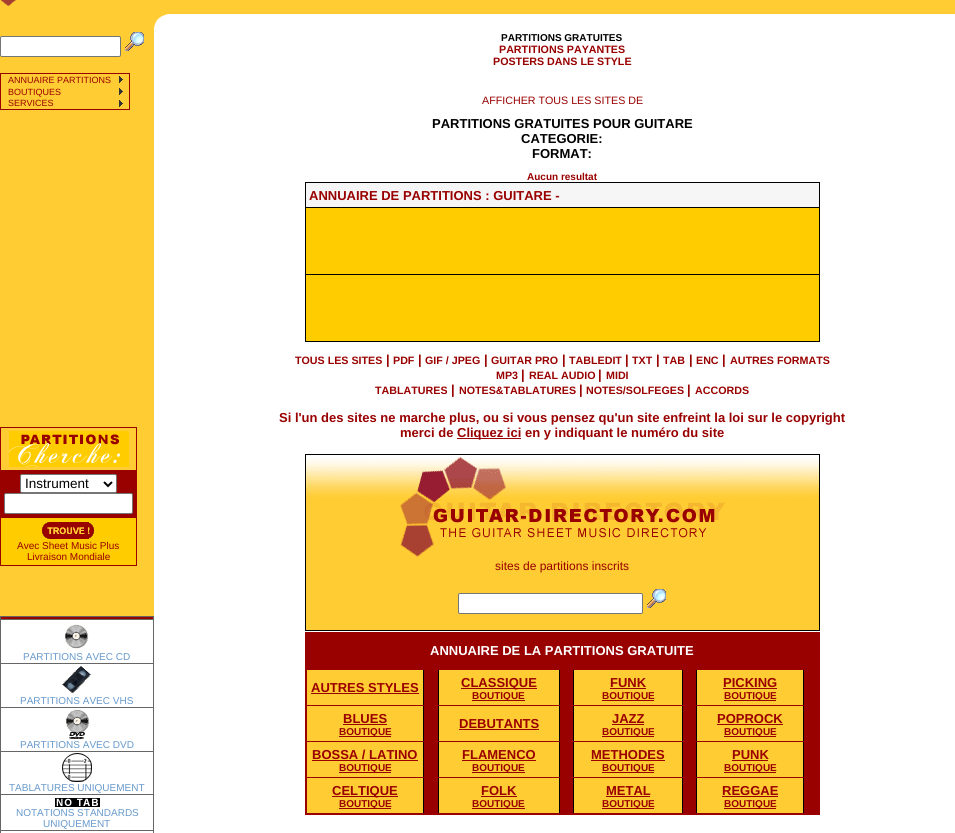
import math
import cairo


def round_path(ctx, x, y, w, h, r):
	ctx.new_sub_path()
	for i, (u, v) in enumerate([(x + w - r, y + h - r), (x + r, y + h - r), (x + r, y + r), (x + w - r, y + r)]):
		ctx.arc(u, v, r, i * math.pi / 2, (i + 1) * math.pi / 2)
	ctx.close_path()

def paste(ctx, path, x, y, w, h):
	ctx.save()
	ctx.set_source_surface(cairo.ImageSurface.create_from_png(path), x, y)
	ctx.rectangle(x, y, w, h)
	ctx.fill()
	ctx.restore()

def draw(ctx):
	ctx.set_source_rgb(1, 1, 1)
	ctx.paint()
	ctx.set_source_rgb(1, 0.8, 0.2)
	ctx.rectangle(0, 0, 955, 14)
	ctx.fill()
	paste(ctx, 'media/1.png', 1, 0, 15, 6)
	ctx.rectangle(0, 14, 154, 602)
	ctx.fill()
	paste(ctx, 'media/2.png', 154, 14, 14, 14)
	ctx.set_source_rgb(1, 1, 1)
	round_path(ctx, 0.5, 36.5, 120, 20, 1.5)
	ctx.fill_preserve()
	ctx.set_source_rgb(0.463, 0.463, 0.463)
	ctx.set_line_width(1)
	ctx.stroke()
	paste(ctx, 'media/3.png', 125, 32, 19, 19)
	ctx.rectangle(0.5, 73.5, 129, 36)
	ctx.set_source_rgb(0.6, 0, 0)
	ctx.stroke()
	paste(ctx, 'media/4.png', 119, 76, 4, 7)
	ctx.select_font_face('Liberation Sans')
	ctx.set_font_size(9)
	ctx.move_to(8, 83)
	ctx.show_text('ANNUAIRE PARTITIONS')
	paste(ctx, 'media/4.png', 119, 88, 4, 7)
	ctx.move_to(8, 95)
	ctx.show_text('BOUTIQUES')
	paste(ctx, 'media/4.png', 119, 100, 4, 7)
	ctx.move_to(8, 106)
	ctx.show_text('SERVICES')
	ctx.rectangle(0, 427, 137, 139)
	ctx.fill()
	ctx.set_source_rgb(1, 0.8, 0.2)
	ctx.rectangle(1, 428, 135, 42)
	ctx.fill()
	paste(ctx, 'media/5.png', 9, 431, 120, 36)
	ctx.set_source_rgb(1, 1, 1)
	round_path(ctx, 20.5, 474.5, 96, 18, 1.5)
	ctx.fill_preserve()
	ctx.set_source_rgb(0.463, 0.463, 0.463)
	ctx.stroke()
	ctx.new_path()
	ctx.move_to(104, 482)
	ctx.line_to(108, 486)
	ctx.line_to(112, 482)
	ctx.set_source_rgb(0, 0, 0)
	ctx.set_line_width(2)
	ctx.stroke()
	ctx.set_font_size(13.5)
	ctx.move_to(25, 488)
	ctx.show_text('Instrument')
	ctx.set_source_rgb(1, 1, 1)
	round_path(ctx, 4.5, 493.5, 128, 20, 1.5)
	ctx.fill_preserve()
	ctx.set_source_rgb(0.463, 0.463, 0.463)
	ctx.set_line_width(1)
	ctx.stroke()
	ctx.set_source_rgb(1, 0.8, 0)
	ctx.rectangle(1, 518, 135, 47)
	ctx.fill()
	paste(ctx, 'media/6.png', 42, 522, 52, 17)
	ctx.set_font_size(10)
	ctx.set_source_rgb(0.6, 0, 0)
	ctx.move_to(17, 549)
	ctx.show_text('Avec Sheet Music Plus')
	ctx.move_to(27, 560)
	ctx.show_text('Livraison Mondiale')
	ctx.set_source_rgb(0.4, 0.4, 0.4)
	ctx.rectangle(0, 616, 154, 217)
	ctx.fill()
	ctx.set_source_rgb(0.6, 0, 0)
	ctx.rectangle(1, 617, 152, 2)
	ctx.fill()
	ctx.set_source_rgb(1, 1, 1)
	ctx.rectangle(1, 620, 152, 43)
	ctx.fill()
	paste(ctx, 'media/7.png', 65, 624, 24, 25)
	ctx.set_source_rgb(0.4, 0.6, 0.8)
	ctx.move_to(23, 660)
	ctx.show_text('PARTITIONS AVEC CD')
	ctx.set_source_rgb(1, 1, 1)
	ctx.rectangle(1, 664, 152, 43)
	ctx.fill()
	paste(ctx, 'media/8.png', 62, 666, 29, 27)
	ctx.set_source_rgb(0.4, 0.6, 0.8)
	ctx.move_to(20, 704)
	ctx.show_text('PARTITIONS AVEC VHS')
	ctx.set_source_rgb(1, 1, 1)
	ctx.rectangle(1, 708, 152, 43)
	ctx.fill()
	paste(ctx, 'media/9.png', 65, 709, 25, 30)
	ctx.set_source_rgb(0.4, 0.6, 0.8)
	ctx.move_to(20, 748)
	ctx.show_text('PARTITIONS AVEC DVD')
	ctx.set_source_rgb(1, 1, 1)
	ctx.rectangle(1, 752, 152, 42)
	ctx.fill()
	paste(ctx, 'media/10.png', 62, 753, 30, 29)
	ctx.set_source_rgb(0.4, 0.6, 0.8)
	ctx.move_to(9, 791)
	ctx.show_text('TABLATURES UNIQUEMENT')
	ctx.set_source_rgb(1, 1, 1)
	ctx.rectangle(1, 795, 152, 35)
	ctx.fill()
	paste(ctx, 'media/11.png', 55, 798, 45, 9)
	ctx.set_source_rgb(0.4, 0.6, 0.8)
	ctx.move_to(16, 816)
	ctx.show_text('NOTATIONS STANDARDS')
	ctx.move_to(43, 827)
	ctx.show_text('UNIQUEMENT')
	ctx.set_source_rgb(1, 1, 1)
	ctx.rectangle(1, 831, 152, 2)
	ctx.fill()
	ctx.select_font_face('Liberation Sans', cairo.FONT_SLANT_NORMAL, cairo.FONT_WEIGHT_BOLD)
	ctx.set_source_rgb(0, 0, 0)
	ctx.move_to(501, 41)
	ctx.show_text('PARTITIONS GRATUITES')
	ctx.set_font_size(10.7)
	ctx.set_source_rgb(0.6, 0, 0)
	ctx.move_to(499, 53)
	ctx.show_text('PARTITIONS PAYANTES')
	ctx.move_to(493, 65)
	ctx.show_text('POSTERS DANS LE STYLE')
	ctx.select_font_face('Liberation Sans')
	ctx.move_to(482, 104)
	ctx.show_text('AFFICHER TOUS LES SITES DE')
	ctx.select_font_face('Liberation Sans', cairo.FONT_SLANT_NORMAL, cairo.FONT_WEIGHT_BOLD)
	ctx.set_font_size(13)
	ctx.set_source_rgb(0, 0, 0)
	for x, y, s in [
		(432, 128, 'PARTITIONS GRATUITES POUR GUITARE'),
		(521, 143, 'CATEGORIE:'),
		(532, 158, 'FORMAT:'),
	]:
		ctx.move_to(x, y)
		ctx.show_text(s)
	ctx.set_font_size(10)
	ctx.set_source_rgb(0.6, 0, 0)
	ctx.move_to(527, 180)
	ctx.show_text('Aucun resultat')
	ctx.set_source_rgb(0, 0, 0)
	ctx.rectangle(305, 182, 515, 160)
	ctx.fill()
	ctx.set_source_rgb(0.961, 0.961, 0.961)
	ctx.rectangle(306, 183, 513, 24)
	ctx.fill()
	ctx.set_font_size(13)
	ctx.set_source_rgb(0.6, 0, 0)
	ctx.move_to(309, 200)
	ctx.show_text('ANNUAIRE DE PARTITIONS : GUITARE -')
	ctx.set_source_rgb(1, 0.8, 0)
	ctx.rectangle(306, 208, 513, 66)
	ctx.fill()
	ctx.rectangle(306, 275, 513, 66)
	ctx.fill()
	ctx.set_font_size(10.7)
	ctx.set_source_rgb(0.6, 0, 0)
	ctx.move_to(295, 364)
	ctx.show_text('TOUS LES SITES')
	ctx.set_font_size(13)
	ctx.move_to(386, 364)
	ctx.show_text('|')
	ctx.set_font_size(10.7)
	ctx.move_to(393, 364)
	ctx.show_text('PDF')
	ctx.set_font_size(13)
	ctx.move_to(418, 364)
	ctx.show_text('|')
	ctx.set_font_size(10.7)
	ctx.move_to(425, 364)
	ctx.show_text('GIF / JPEG')
	ctx.set_font_size(13)
	ctx.move_to(484, 364)
	ctx.show_text('|')
	ctx.set_font_size(10.7)
	ctx.move_to(491, 364)
	ctx.show_text('GUITAR PRO')
	ctx.set_font_size(13)
	ctx.move_to(562, 364)
	ctx.show_text('|')
	ctx.set_font_size(10.7)
	ctx.move_to(569, 364)
	ctx.show_text('TABLEDIT')
	ctx.set_font_size(13)
	ctx.move_to(625, 364)
	ctx.show_text('|')
	ctx.set_font_size(10.7)
	ctx.move_to(632, 364)
	ctx.show_text('TXT')
	ctx.set_font_size(13)
	ctx.move_to(656, 364)
	ctx.show_text('|')
	ctx.set_font_size(10.7)
	ctx.move_to(663, 364)
	ctx.show_text('TAB')
	ctx.set_font_size(13)
	ctx.move_to(689, 364)
	ctx.show_text('|')
	ctx.set_font_size(10.7)
	ctx.move_to(696, 364)
	ctx.show_text('ENC')
	ctx.set_font_size(13)
	ctx.move_to(722, 364)
	ctx.show_text('|')
	ctx.set_font_size(10.7)
	ctx.move_to(730, 364)
	ctx.show_text('AUTRES FORMATS')
	ctx.move_to(496, 379)
	ctx.show_text('MP3')
	ctx.set_font_size(13)
	ctx.move_to(521, 379)
	ctx.show_text('|')
	ctx.set_font_size(10.7)
	ctx.move_to(529, 379)
	ctx.show_text('REAL AUDIO')
	ctx.set_font_size(13)
	ctx.move_to(598, 379)
	ctx.show_text('|')
	ctx.set_font_size(10.7)
	ctx.move_to(606, 379)
	ctx.show_text('MIDI')
	ctx.move_to(375, 394)
	ctx.show_text('TABLATURES')
	ctx.set_font_size(13)
	ctx.move_to(451, 394)
	ctx.show_text('|')
	ctx.set_font_size(10.7)
	ctx.move_to(459, 394)
	ctx.show_text('NOTES&TABLATURES')
	ctx.set_font_size(13)
	ctx.move_to(579, 394)
	ctx.show_text('|')
	ctx.set_font_size(10.7)
	ctx.move_to(586, 394)
	ctx.show_text('NOTES/SOLFEGES')
	ctx.set_font_size(13)
	ctx.move_to(687, 394)
	ctx.show_text('|')
	ctx.set_font_size(10.7)
	ctx.move_to(695, 394)
	ctx.show_text('ACCORDS')
	ctx.set_font_size(13)
	ctx.move_to(279, 422)
	ctx.show_text('Si l\'un des sites ne marche plus, ou si vous pensez qu\'un site enfreint la loi sur le copyright')
	ctx.move_to(400, 437)
	ctx.show_text('merci de')
	ctx.rectangle(457, 438, 64, 1)
	ctx.fill()
	ctx.move_to(457, 437)
	ctx.show_text('Cliquez ici en y indiquant le numéro du site')
	ctx.set_source_rgb(0, 0, 0)
	ctx.rectangle(305, 454, 515, 177)
	ctx.fill()
	ctx.set_source_rgb(1, 0.8, 0.2)
	ctx.rectangle(306, 557, 513, 73)
	ctx.fill()
	paste(ctx, 'media/12.png', 306, 455, 513, 102)
	ctx.select_font_face('Liberation Sans')
	ctx.set_font_size(12)
	ctx.set_source_rgb(0.6, 0, 0)
	ctx.move_to(495, 570)
	ctx.show_text('sites de partitions inscrits')
	ctx.set_source_rgb(1, 1, 1)
	round_path(ctx, 458.5, 593.5, 184, 20, 1.5)
	ctx.fill_preserve()
	ctx.set_source_rgb(0.463, 0.463, 0.463)
	ctx.stroke()
	paste(ctx, 'media/3.png', 647, 589, 19, 19)
	ctx.set_source_rgb(0.6, 0, 0)
	ctx.rectangle(305, 632, 515, 183)
	ctx.fill()
	ctx.select_font_face('Liberation Sans', cairo.FONT_SLANT_NORMAL, cairo.FONT_WEIGHT_BOLD)
	ctx.set_font_size(13)
	ctx.set_source_rgb(1, 1, 1)
	ctx.move_to(430, 655)
	ctx.show_text('ANNUAIRE DE LA PARTITIONS GRATUITE')
	ctx.set_source_rgb(0, 0, 0)
	ctx.rectangle(423, 670, 381, 35)
	ctx.fill()
	ctx.set_source_rgb(1, 0.8, 0.2)
	ctx.rectangle(307, 670, 116, 35)
	ctx.fill()
	ctx.set_source_rgb(0.6, 0, 0)
	ctx.move_to(311, 692)
	ctx.show_text('AUTRES STYLES')
	ctx.rectangle(311, 693, 108, 1)
	ctx.rectangle(424, 670, 14, 35)
	ctx.fill()
	ctx.set_source_rgb(1, 0.8, 0.2)
	ctx.rectangle(439, 670, 120, 35)
	ctx.fill()
	ctx.set_source_rgb(0.6, 0, 0)
	ctx.rectangle(461, 688, 76, 1)
	ctx.fill()
	ctx.move_to(461, 687)
	ctx.show_text('CLASSIQUE')
	ctx.rectangle(472, 700, 53, 1)
	ctx.fill()
	ctx.set_font_size(10)
	ctx.move_to(472, 699)
	ctx.show_text('BOUTIQUE')
	ctx.rectangle(560, 670, 13, 35)
	ctx.fill()
	ctx.set_source_rgb(1, 0.8, 0.2)
	ctx.rectangle(574, 670, 108, 35)
	ctx.fill()
	ctx.set_font_size(13)
	ctx.set_source_rgb(0.6, 0, 0)
	ctx.move_to(610, 687)
	ctx.show_text('FUNK')
	ctx.rectangle(610, 688, 36, 1)
	ctx.fill()
	ctx.rectangle(602, 700, 52, 1)
	ctx.fill()
	ctx.set_font_size(10)
	ctx.move_to(602, 699)
	ctx.show_text('BOUTIQUE')
	ctx.rectangle(683, 670, 13, 35)
	ctx.fill()
	ctx.set_source_rgb(1, 0.8, 0.2)
	ctx.rectangle(697, 670, 106, 35)
	ctx.fill()
	ctx.set_font_size(13)
	ctx.set_source_rgb(0.6, 0, 0)
	ctx.move_to(723, 687)
	ctx.show_text('PICKING')
	ctx.rectangle(723, 688, 54, 1)
	ctx.fill()
	ctx.rectangle(724, 700, 52, 1)
	ctx.fill()
	ctx.set_font_size(10)
	ctx.move_to(724, 699)
	ctx.show_text('BOUTIQUE')
	ctx.set_source_rgb(0, 0, 0)
	ctx.rectangle(423, 706, 381, 35)
	ctx.fill()
	ctx.set_source_rgb(1, 0.8, 0.2)
	ctx.rectangle(307, 706, 116, 35)
	ctx.fill()
	ctx.set_font_size(13)
	ctx.set_source_rgb(0.6, 0, 0)
	ctx.move_to(343, 723)
	ctx.show_text('BLUES')
	ctx.rectangle(343, 724, 44, 1)
	ctx.fill()
	ctx.rectangle(339, 736, 52, 1)
	ctx.fill()
	ctx.set_font_size(10)
	ctx.move_to(339, 735)
	ctx.show_text('BOUTIQUE')
	ctx.rectangle(424, 706, 14, 35)
	ctx.fill()
	ctx.set_source_rgb(1, 0.8, 0.2)
	ctx.rectangle(439, 706, 120, 35)
	ctx.fill()
	ctx.set_font_size(13)
	ctx.set_source_rgb(0.6, 0, 0)
	ctx.move_to(459, 728)
	ctx.show_text('DEBUTANTS')
	ctx.rectangle(459, 729, 80, 1)
	ctx.rectangle(560, 706, 13, 35)
	ctx.fill()
	ctx.set_source_rgb(1, 0.8, 0.2)
	ctx.rectangle(574, 706, 108, 35)
	ctx.fill()
	ctx.set_source_rgb(0.6, 0, 0)
	ctx.move_to(612, 723)
	ctx.show_text('JAZZ')
	ctx.rectangle(612, 724, 32, 1)
	ctx.fill()
	ctx.rectangle(602, 736, 52, 1)
	ctx.fill()
	ctx.set_font_size(10)
	ctx.move_to(602, 735)
	ctx.show_text('BOUTIQUE')
	ctx.rectangle(683, 706, 13, 35)
	ctx.fill()
	ctx.set_source_rgb(1, 0.8, 0.2)
	ctx.rectangle(697, 706, 106, 35)
	ctx.fill()
	ctx.set_font_size(13)
	ctx.set_source_rgb(0.6, 0, 0)
	ctx.move_to(717, 723)
	ctx.show_text('POPROCK')
	ctx.rectangle(717, 724, 66, 1)
	ctx.fill()
	ctx.rectangle(724, 736, 52, 1)
	ctx.fill()
	ctx.set_font_size(10)
	ctx.move_to(724, 735)
	ctx.show_text('BOUTIQUE')
	ctx.set_source_rgb(0, 0, 0)
	ctx.rectangle(423, 742, 381, 35)
	ctx.fill()
	ctx.set_source_rgb(1, 0.8, 0.2)
	ctx.rectangle(307, 742, 116, 35)
	ctx.fill()
	ctx.set_font_size(13)
	ctx.set_source_rgb(0.6, 0, 0)
	ctx.move_to(312, 759)
	ctx.show_text('BOSSA / LATINO')
	ctx.rectangle(312, 760, 106, 1)
	ctx.fill()
	ctx.rectangle(339, 772, 52, 1)
	ctx.fill()
	ctx.set_font_size(10)
	ctx.move_to(339, 771)
	ctx.show_text('BOUTIQUE')
	ctx.rectangle(424, 742, 14, 35)
	ctx.fill()
	ctx.set_source_rgb(1, 0.8, 0.2)
	ctx.rectangle(439, 742, 120, 35)
	ctx.fill()
	ctx.set_font_size(13)
	ctx.set_source_rgb(0.6, 0, 0)
	ctx.move_to(462, 759)
	ctx.show_text('FLAMENCO')
	ctx.rectangle(462, 760, 74, 1)
	ctx.fill()
	ctx.rectangle(472, 772, 53, 1)
	ctx.fill()
	ctx.set_font_size(10)
	ctx.move_to(472, 771)
	ctx.show_text('BOUTIQUE')
	ctx.rectangle(560, 742, 13, 35)
	ctx.fill()
	ctx.set_source_rgb(1, 0.8, 0.2)
	ctx.rectangle(574, 742, 108, 35)
	ctx.fill()
	ctx.set_font_size(13)
	ctx.set_source_rgb(0.6, 0, 0)
	ctx.move_to(591, 759)
	ctx.show_text('METHODES')
	ctx.rectangle(591, 760, 74, 1)
	ctx.fill()
	ctx.rectangle(602, 772, 52, 1)
	ctx.fill()
	ctx.set_font_size(10)
	ctx.move_to(602, 771)
	ctx.show_text('BOUTIQUE')
	ctx.rectangle(683, 742, 13, 35)
	ctx.fill()
	ctx.set_source_rgb(1, 0.8, 0.2)
	ctx.rectangle(697, 742, 106, 35)
	ctx.fill()
	ctx.set_font_size(13)
	ctx.set_source_rgb(0.6, 0, 0)
	ctx.move_to(732, 759)
	ctx.show_text('PUNK')
	ctx.rectangle(732, 760, 36, 1)
	ctx.fill()
	ctx.rectangle(724, 772, 52, 1)
	ctx.fill()
	ctx.set_font_size(10)
	ctx.move_to(724, 771)
	ctx.show_text('BOUTIQUE')
	ctx.set_source_rgb(0, 0, 0)
	ctx.rectangle(423, 778, 381, 35)
	ctx.fill()
	ctx.set_source_rgb(1, 0.8, 0.2)
	ctx.rectangle(307, 778, 116, 35)
	ctx.fill()
	ctx.set_source_rgb(0.6, 0, 0)
	ctx.rectangle(332, 796, 66, 1)
	ctx.fill()
	ctx.set_font_size(13)
	ctx.move_to(332, 795)
	ctx.show_text('CELTIQUE')
	ctx.rectangle(339, 808, 52, 1)
	ctx.fill()
	ctx.set_font_size(10)
	ctx.move_to(339, 807)
	ctx.show_text('BOUTIQUE')
	ctx.rectangle(424, 778, 14, 35)
	ctx.fill()
	ctx.set_source_rgb(1, 0.8, 0.2)
	ctx.rectangle(439, 778, 120, 35)
	ctx.fill()
	ctx.set_font_size(13)
	ctx.set_source_rgb(0.6, 0, 0)
	ctx.move_to(481, 795)
	ctx.show_text('FOLK')
	ctx.rectangle(481, 796, 36, 1)
	ctx.fill()
	ctx.rectangle(472, 808, 53, 1)
	ctx.fill()
	ctx.set_font_size(10)
	ctx.move_to(472, 807)
	ctx.show_text('BOUTIQUE')
	ctx.rectangle(560, 778, 13, 35)
	ctx.fill()
	ctx.set_source_rgb(1, 0.8, 0.2)
	ctx.rectangle(574, 778, 108, 35)
	ctx.fill()
	ctx.set_font_size(13)
	ctx.set_source_rgb(0.6, 0, 0)
	ctx.move_to(606, 795)
	ctx.show_text('METAL')
	ctx.rectangle(606, 796, 44, 1)
	ctx.fill()
	ctx.rectangle(602, 808, 52, 1)
	ctx.fill()
	ctx.set_font_size(10)
	ctx.move_to(602, 807)
	ctx.show_text('BOUTIQUE')
	ctx.rectangle(683, 778, 13, 35)
	ctx.fill()
	ctx.set_source_rgb(1, 0.8, 0.2)
	ctx.rectangle(697, 778, 106, 35)
	ctx.fill()
	ctx.set_font_size(13)
	ctx.set_source_rgb(0.6, 0, 0)
	ctx.move_to(722, 795)
	ctx.show_text('REGGAE')
	ctx.rectangle(722, 796, 56, 1)
	ctx.fill()
	ctx.rectangle(724, 808, 52, 1)
	ctx.fill()
	ctx.set_font_size(10)
	ctx.move_to(724, 807)
	ctx.show_text('BOUTIQUE')


surface = cairo.ImageSurface(cairo.FORMAT_RGB24, 955, 833)
ctx = cairo.Context(surface)
options = cairo.FontOptions()
options.set_hint_metrics(cairo.HINT_METRICS_OFF)
options.set_hint_style(cairo.HINT_STYLE_NONE)
ctx.set_font_options(options)
ctx.set_miter_limit(4)
draw(ctx)
surface.write_to_png('image.png')
